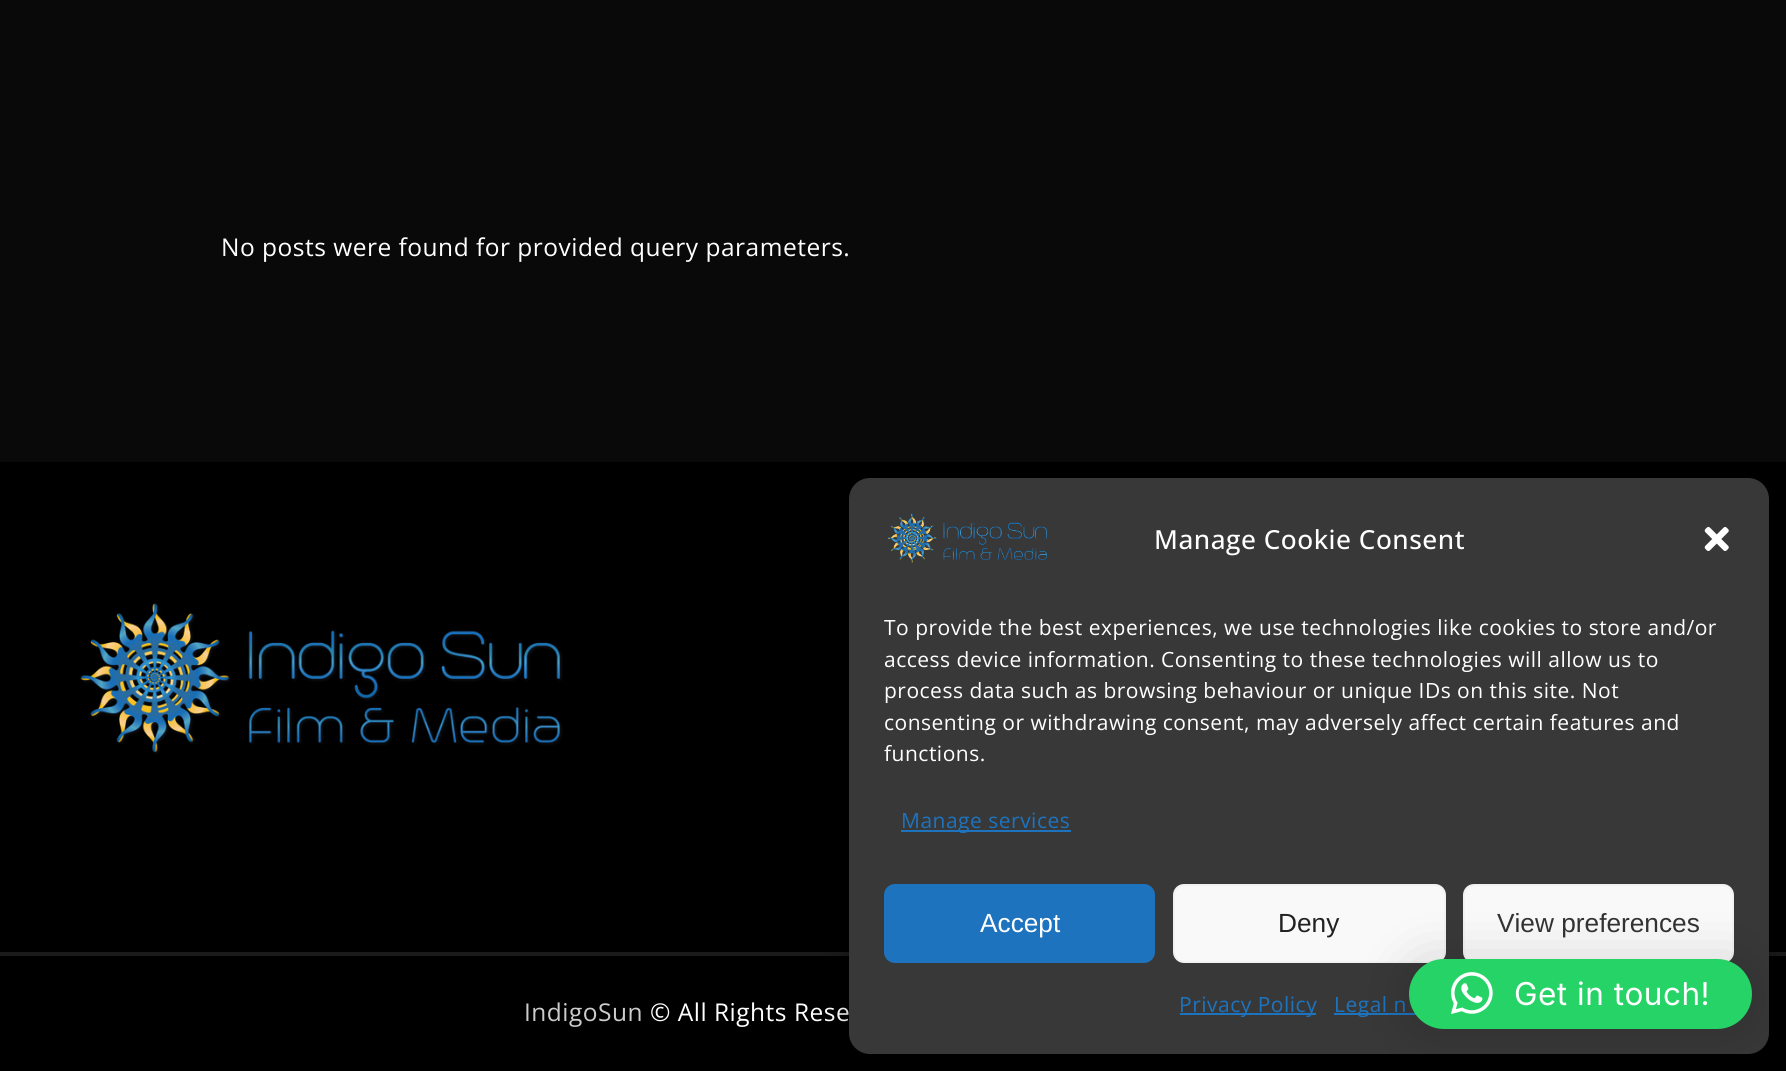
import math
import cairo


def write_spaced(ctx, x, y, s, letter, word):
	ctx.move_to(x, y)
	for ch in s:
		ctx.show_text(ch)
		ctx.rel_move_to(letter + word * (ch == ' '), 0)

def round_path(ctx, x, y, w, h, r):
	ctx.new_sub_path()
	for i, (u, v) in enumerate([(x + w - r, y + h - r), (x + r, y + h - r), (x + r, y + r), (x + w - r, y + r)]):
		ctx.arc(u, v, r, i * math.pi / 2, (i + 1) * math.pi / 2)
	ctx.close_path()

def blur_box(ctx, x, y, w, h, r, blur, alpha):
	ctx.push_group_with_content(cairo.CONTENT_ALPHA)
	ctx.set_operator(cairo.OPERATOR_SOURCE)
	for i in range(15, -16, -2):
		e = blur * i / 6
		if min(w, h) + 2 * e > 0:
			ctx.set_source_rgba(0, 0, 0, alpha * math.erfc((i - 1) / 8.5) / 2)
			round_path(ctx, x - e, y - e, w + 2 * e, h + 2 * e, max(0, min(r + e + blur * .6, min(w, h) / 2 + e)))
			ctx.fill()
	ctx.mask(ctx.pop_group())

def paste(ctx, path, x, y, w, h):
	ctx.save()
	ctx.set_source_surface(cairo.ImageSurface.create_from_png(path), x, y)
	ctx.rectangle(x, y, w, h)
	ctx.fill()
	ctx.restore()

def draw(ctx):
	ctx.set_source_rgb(0.039, 0.039, 0.039)
	ctx.paint()
	ctx.select_font_face('Open Sans')
	ctx.set_font_size(24.5)
	ctx.set_source_rgb(1, 1, 1)
	write_spaced(ctx, 221, 256, 'No posts were found for provided query parameters.', 0.5, 0)
	ctx.set_source_rgb(0, 0, 0)
	ctx.rectangle(0, 462, 1786, 490)
	ctx.fill()
	paste(ctx, 'media/1.png', 80, 603, 483, 151)
	ctx.rectangle(0, 956, 1786, 115)
	ctx.fill()
	ctx.set_source_rgb(0.102, 0.102, 0.102)
	ctx.rectangle(0, 952, 1786, 4)
	ctx.fill()
	ctx.set_source_rgb(0.8, 0.8, 0.8)
	write_spaced(ctx, 524, 1021, 'IndigoSun', 0.5, 0)
	ctx.set_source_rgb(1, 1, 1)
	write_spaced(ctx, 650, 1021, '© All Rights Rese', 0.5, 0)
	ctx.set_source_rgb(0, 0, 0)
	blur_box(ctx, 849, 488, 920, 576, 21, 5, 0.23)
	blur_box(ctx, 849, 495, 920, 576, 21, 17.5, 0.19)
	ctx.set_source_rgb(0.22, 0.22, 0.22)
	round_path(ctx, 849, 478, 920, 576, 21)
	ctx.fill()
	paste(ctx, 'media/2.png', 887, 513, 160, 50)
	ctx.select_font_face('Open Sans Medium')
	ctx.set_font_size(26.25)
	ctx.set_source_rgb(1, 1, 1)
	write_spaced(ctx, 1154, 549, 'Manage Cookie Consent', 0.5, 0)
	paste(ctx, 'media/3.png', 1704, 527, 25, 24)
	ctx.select_font_face('Open Sans')
	ctx.set_font_size(21)
	for x, y, s in [
		(884, 635, 'To provide the best experiences, we use technologies like cookies to store and/or'),
		(884, 667, 'access device information. Consenting to these technologies will allow us to'),
		(884, 698, 'process data such as browsing behaviour or unique IDs on this site. Not'),
		(884, 730, 'consenting or withdrawing consent, may adversely affect certain features and'),
		(884, 761, 'functions.'),
	]:
		write_spaced(ctx, x, y, s, 0.5, 0)
	ctx.set_source_rgb(0.118, 0.451, 0.745)
	ctx.rectangle(901, 830, 170, 2)
	ctx.fill()
	write_spaced(ctx, 901, 828, 'Manage services', 0.5, 0)
	round_path(ctx, 885, 885, 269, 77, 10)
	ctx.fill_preserve()
	ctx.stroke()
	ctx.select_font_face('Liberation Sans')
	ctx.set_font_size(26.25)
	ctx.set_source_rgb(1, 1, 1)
	ctx.move_to(980, 932)
	ctx.show_text('Accept')
	ctx.set_source_rgb(0.976, 0.976, 0.976)
	round_path(ctx, 1174, 885, 271, 77, 10)
	ctx.fill_preserve()
	ctx.set_source_rgb(0.949, 0.949, 0.949)
	ctx.stroke()
	ctx.set_source_rgb(0.133, 0.133, 0.133)
	ctx.move_to(1278, 932)
	ctx.show_text('Deny')
	ctx.set_source_rgb(0.976, 0.976, 0.976)
	round_path(ctx, 1464, 885, 269, 77, 10)
	ctx.fill_preserve()
	ctx.set_source_rgb(0.949, 0.949, 0.949)
	ctx.stroke()
	ctx.set_source_rgb(0.2, 0.2, 0.2)
	ctx.move_to(1497, 932)
	ctx.show_text('View preferences')
	ctx.set_source_rgb(0.118, 0.451, 0.745)
	ctx.rectangle(1180, 1013, 136, 2)
	ctx.fill()
	ctx.select_font_face('Open Sans')
	ctx.set_font_size(21)
	write_spaced(ctx, 1179, 1012, 'Privacy Policy', 0.5, 0)
	ctx.rectangle(1334, 1013, 82, 2)
	ctx.fill()
	write_spaced(ctx, 1334, 1012, 'Legal n', 0.5, 0)
	ctx.set_source_rgb(0, 0, 0)
	blur_box(ctx, 1409, 963, 343, 70, 35, 28, 0.16)
	ctx.set_source_rgb(0.145, 0.827, 0.4)
	round_path(ctx, 1409, 959, 343, 70, 35)
	ctx.fill()
	paste(ctx, 'media/4.png', 1451, 972, 42, 42)
	ctx.select_font_face('Inter')
	ctx.set_font_size(31.5)
	ctx.set_source_rgb(1, 1, 1)
	write_spaced(ctx, 1514, 1005, 'Get in touch!', 0.5, 0)


surface = cairo.ImageSurface(cairo.FORMAT_RGB24, 1786, 1071)
ctx = cairo.Context(surface)
options = cairo.FontOptions()
options.set_hint_metrics(cairo.HINT_METRICS_OFF)
options.set_hint_style(cairo.HINT_STYLE_NONE)
ctx.set_font_options(options)
ctx.set_miter_limit(4)
draw(ctx)
surface.write_to_png('image.png')
